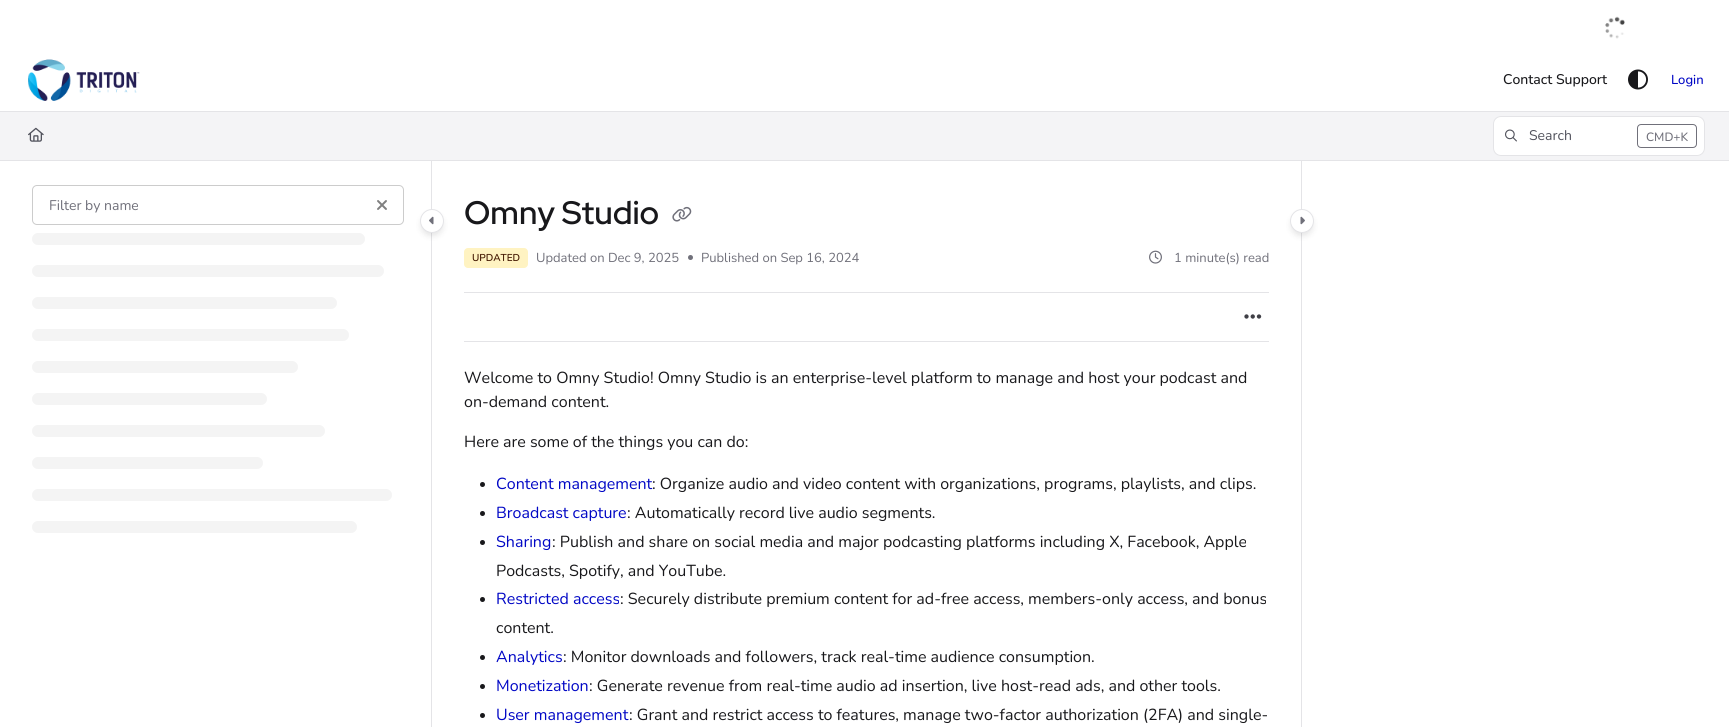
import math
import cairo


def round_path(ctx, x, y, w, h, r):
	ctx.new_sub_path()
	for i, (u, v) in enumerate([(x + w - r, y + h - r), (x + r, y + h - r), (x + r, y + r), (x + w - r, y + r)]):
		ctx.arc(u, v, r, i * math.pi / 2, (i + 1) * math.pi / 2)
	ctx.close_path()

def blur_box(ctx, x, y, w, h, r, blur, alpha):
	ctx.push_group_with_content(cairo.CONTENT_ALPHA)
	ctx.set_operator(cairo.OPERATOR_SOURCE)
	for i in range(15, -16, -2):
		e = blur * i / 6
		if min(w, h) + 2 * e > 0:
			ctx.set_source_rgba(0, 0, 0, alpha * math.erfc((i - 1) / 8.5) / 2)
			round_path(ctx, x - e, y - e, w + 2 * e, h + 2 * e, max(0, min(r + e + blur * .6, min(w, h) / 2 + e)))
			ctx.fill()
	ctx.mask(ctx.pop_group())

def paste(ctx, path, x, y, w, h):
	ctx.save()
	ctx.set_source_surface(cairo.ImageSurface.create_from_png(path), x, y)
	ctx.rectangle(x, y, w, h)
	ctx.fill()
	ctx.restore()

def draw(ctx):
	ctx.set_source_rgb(1, 1, 1)
	ctx.paint()
	paste(ctx, 'media/1.png', 1605, 16, 20, 23)
	paste(ctx, 'media/2.png', 28, 59, 112, 42)
	ctx.select_font_face('Nunito Medium')
	ctx.set_font_size(14)
	ctx.set_source_rgb(0.094, 0.094, 0.106)
	ctx.move_to(1503, 84)
	ctx.show_text('Contact Support')
	paste(ctx, 'media/3.png', 1628, 69, 20, 21)
	ctx.set_font_size(13)
	ctx.set_source_rgb(0, 0.024, 0.773)
	ctx.move_to(1671, 84)
	ctx.show_text('Login')
	ctx.set_source_rgb(0.894, 0.894, 0.906)
	ctx.rectangle(0, 111, 1729, 1)
	ctx.rectangle(0, 160, 1729, 1)
	ctx.fill()
	ctx.set_source_rgb(0.957, 0.957, 0.961)
	ctx.rectangle(0, 112, 1729, 48)
	ctx.fill()
	paste(ctx, 'media/4.png', 28, 127, 16, 15)
	ctx.set_source_rgb(1, 1, 1)
	round_path(ctx, 1493.5, 116.5, 211, 39, 7.5)
	ctx.fill_preserve()
	ctx.set_source_rgb(0.894, 0.894, 0.906)
	ctx.set_line_width(1)
	ctx.stroke()
	paste(ctx, 'media/5.png', 1505, 129, 12, 13)
	ctx.select_font_face('Nunito')
	ctx.set_font_size(14)
	ctx.set_source_rgb(0.318, 0.322, 0.361)
	ctx.move_to(1529, 140)
	ctx.show_text('Search')
	round_path(ctx, 1637.5, 124.5, 59, 23, 3.5)
	ctx.set_source_rgb(0.439, 0.439, 0.478)
	ctx.stroke()
	ctx.select_font_face('Nunito Medium')
	ctx.set_font_size(12)
	ctx.move_to(1646, 141)
	ctx.show_text('CMD+K')
	ctx.set_source_rgb(0.894, 0.894, 0.906)
	ctx.rectangle(431, 161, 1, 566)
	ctx.fill()
	round_path(ctx, 32.5, 185.5, 371, 39, 4.5)
	ctx.set_source_rgb(0.8, 0.8, 0.8)
	ctx.stroke()
	ctx.select_font_face('Nunito')
	ctx.set_font_size(14)
	ctx.set_source_rgb(0.439, 0.439, 0.478)
	ctx.move_to(49, 210)
	ctx.show_text('Filter by name')
	paste(ctx, 'media/6.png', 377, 200, 10, 10)
	ctx.set_source_rgb(0, 0, 0)
	blur_box(ctx, 421, 214, 22, 22, 11, 3, 0.1)
	ctx.set_source_rgb(1, 1, 1)
	ctx.arc(432, 221, 11.5, 0, 2 * math.pi)
	ctx.fill_preserve()
	ctx.set_source_rgb(0.894, 0.894, 0.906)
	ctx.stroke()
	paste(ctx, 'media/7.png', 429, 216, 5, 9)
	ctx.set_source_rgb(0.957, 0.957, 0.957)
	round_path(ctx, 32, 233, 333, 12, 6)
	ctx.fill()
	round_path(ctx, 32, 265, 352, 12, 6)
	ctx.fill()
	round_path(ctx, 32, 297, 305, 12, 6)
	ctx.fill()
	round_path(ctx, 32, 329, 317, 12, 6)
	ctx.fill()
	round_path(ctx, 32, 361, 266, 12, 6)
	ctx.fill()
	round_path(ctx, 32, 393, 235, 12, 6)
	ctx.fill()
	round_path(ctx, 32, 425, 293, 12, 6)
	ctx.fill()
	round_path(ctx, 32, 457, 231, 12, 6)
	ctx.fill()
	round_path(ctx, 32, 489, 360, 12, 6)
	ctx.fill()
	round_path(ctx, 32, 521, 325, 12, 6)
	ctx.fill()
	ctx.select_font_face('Red Hat Display SemiBold')
	ctx.set_font_size(32.5)
	ctx.set_source_rgb(0.094, 0.094, 0.106)
	ctx.move_to(464, 224)
	ctx.show_text('Omny Studio')
	paste(ctx, 'media/8.png', 672, 206, 20, 16)
	ctx.set_source_rgb(1, 0.953, 0.761)
	round_path(ctx, 464, 248, 64, 20, 4)
	ctx.fill()
	ctx.select_font_face('Nunito SemiBold')
	ctx.set_font_size(10)
	ctx.set_source_rgb(0.271, 0.102, 0.012)
	ctx.move_to(472, 261)
	ctx.show_text('UPDATED')
	ctx.select_font_face('Nunito')
	ctx.set_font_size(13)
	ctx.set_source_rgb(0.439, 0.439, 0.478)
	ctx.move_to(536, 262)
	ctx.show_text('Updated on Dec 9, 2025')
	ctx.new_path()
	ctx.arc(690.5, 257.5, 2.5, 0, 2 * math.pi)
	ctx.fill()
	ctx.move_to(701, 262)
	ctx.show_text('Published on Sep 16, 2024')
	paste(ctx, 'media/9.png', 1149, 250, 13, 14)
	ctx.move_to(1174, 262)
	ctx.show_text('1 minute(s) read')
	ctx.set_source_rgb(0.894, 0.894, 0.906)
	ctx.rectangle(464, 292, 805, 1)
	ctx.fill()
	ctx.rectangle(464, 341, 805, 1)
	ctx.fill()
	paste(ctx, 'media/10.png', 1244, 314, 18, 5)
	ctx.set_font_size(16)
	ctx.set_source_rgb(0.094, 0.094, 0.106)
	for x, y, s in [
		(464, 383, 'Welcome to Omny Studio! Omny Studio is an enterprise-level platform to manage and host your podcast and'),
		(464, 407, 'on-demand content.'),
		(464, 447, 'Here are some of the things you can do:'),
	]:
		ctx.move_to(x, y)
		ctx.show_text(s)
	ctx.new_path()
	ctx.arc(482.5, 484.5, 2.5, 0, 2 * math.pi)
	ctx.fill()
	ctx.set_source_rgb(0, 0.024, 0.773)
	ctx.move_to(496, 489)
	ctx.show_text('Content management')
	ctx.set_source_rgb(0.094, 0.094, 0.106)
	ctx.move_to(652, 489)
	ctx.show_text(': Organize audio and video content with organizations, programs, playlists, and clips.')
	ctx.new_path()
	ctx.arc(482.5, 513.5, 2.5, 0, 2 * math.pi)
	ctx.fill()
	ctx.set_source_rgb(0, 0.024, 0.773)
	ctx.move_to(496, 518)
	ctx.show_text('Broadcast capture')
	ctx.set_source_rgb(0.094, 0.094, 0.106)
	ctx.move_to(627, 518)
	ctx.show_text(': Automatically record live audio segments.')
	ctx.new_path()
	ctx.arc(482.5, 542.5, 2.5, 0, 2 * math.pi)
	ctx.fill()
	ctx.set_source_rgb(0, 0.024, 0.773)
	ctx.move_to(496, 547)
	ctx.show_text('Sharing')
	ctx.set_source_rgb(0.094, 0.094, 0.106)
	ctx.move_to(552, 547)
	ctx.show_text(': Publish and share on social media and major podcasting platforms including X, Facebook, Apple')
	ctx.move_to(496, 576)
	ctx.show_text('Podcasts, Spotify, and YouTube.')
	ctx.new_path()
	ctx.arc(482.5, 599.5, 2.5, 0, 2 * math.pi)
	ctx.fill()
	ctx.set_source_rgb(0, 0.024, 0.773)
	ctx.move_to(496, 604)
	ctx.show_text('Restricted access')
	ctx.set_source_rgb(0.094, 0.094, 0.106)
	ctx.move_to(620, 604)
	ctx.show_text(': Securely distribute premium content for ad-free access, members-only access, and bonus')
	ctx.move_to(496, 633)
	ctx.show_text('content.')
	ctx.new_path()
	ctx.arc(482.5, 657.5, 2.5, 0, 2 * math.pi)
	ctx.fill()
	ctx.set_source_rgb(0, 0.024, 0.773)
	ctx.move_to(496, 662)
	ctx.show_text('Analytics')
	ctx.set_source_rgb(0.094, 0.094, 0.106)
	ctx.move_to(563, 662)
	ctx.show_text(': Monitor downloads and followers, track real-time audience consumption.')
	ctx.new_path()
	ctx.arc(482.5, 686.5, 2.5, 0, 2 * math.pi)
	ctx.fill()
	ctx.set_source_rgb(0, 0.024, 0.773)
	ctx.move_to(496, 691)
	ctx.show_text('Monetization')
	ctx.set_source_rgb(0.094, 0.094, 0.106)
	ctx.move_to(589, 691)
	ctx.show_text(': Generate revenue from real-time audio ad insertion, live host-read ads, and other tools.')
	ctx.new_path()
	ctx.arc(482.5, 715.5, 2.5, 0, 2 * math.pi)
	ctx.fill()
	ctx.set_source_rgb(0, 0.024, 0.773)
	ctx.move_to(496, 720)
	ctx.show_text('User management')
	ctx.set_source_rgb(0.094, 0.094, 0.106)
	ctx.move_to(629, 720)
	ctx.show_text(': Grant and restrict access to features, manage two-factor authorization (2FA) and single-')
	ctx.set_source_rgb(0.894, 0.894, 0.906)
	ctx.rectangle(1301, 161, 1, 566)
	ctx.fill()
	ctx.set_source_rgb(0, 0, 0)
	blur_box(ctx, 1291, 214, 22, 22, 11, 3, 0.1)
	ctx.set_source_rgb(1, 1, 1)
	ctx.arc(1302, 221, 11.5, 0, 2 * math.pi)
	ctx.fill_preserve()
	ctx.set_source_rgb(0.894, 0.894, 0.906)
	ctx.stroke()
	paste(ctx, 'media/11.png', 1300, 216, 5, 9)


surface = cairo.ImageSurface(cairo.FORMAT_RGB24, 1729, 727)
ctx = cairo.Context(surface)
options = cairo.FontOptions()
options.set_hint_metrics(cairo.HINT_METRICS_OFF)
options.set_hint_style(cairo.HINT_STYLE_NONE)
ctx.set_font_options(options)
ctx.set_miter_limit(4)
draw(ctx)
surface.write_to_png('image.png')
